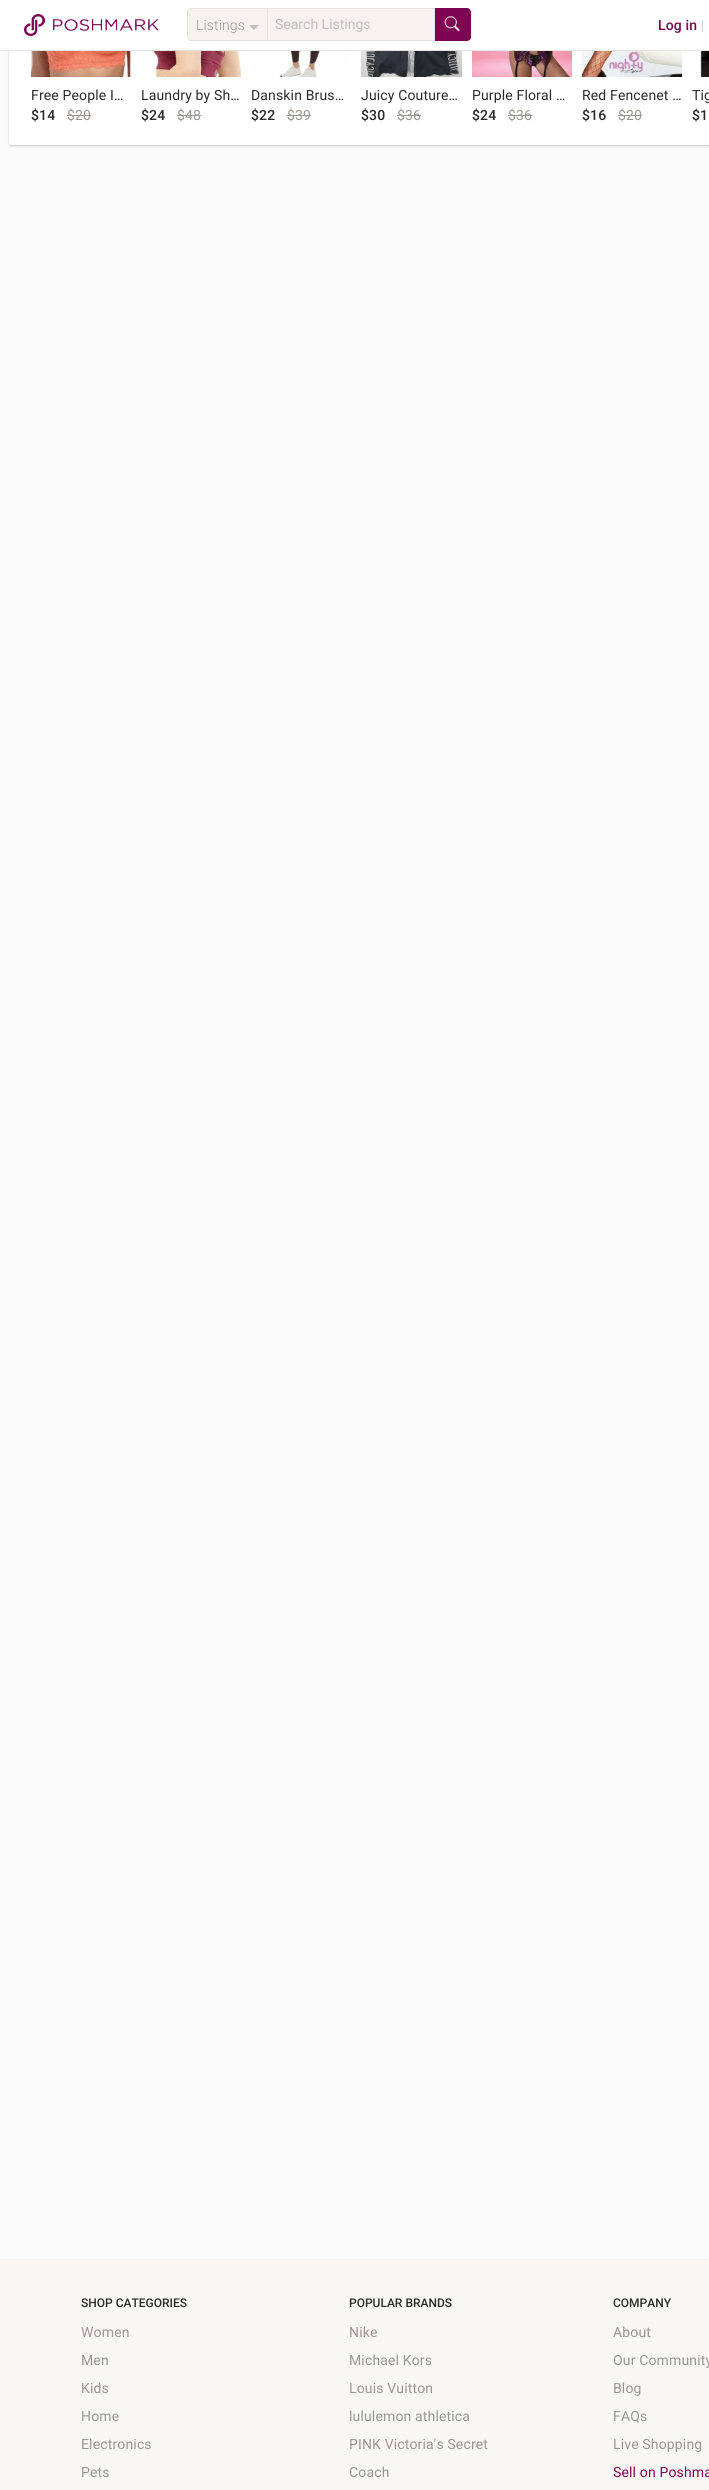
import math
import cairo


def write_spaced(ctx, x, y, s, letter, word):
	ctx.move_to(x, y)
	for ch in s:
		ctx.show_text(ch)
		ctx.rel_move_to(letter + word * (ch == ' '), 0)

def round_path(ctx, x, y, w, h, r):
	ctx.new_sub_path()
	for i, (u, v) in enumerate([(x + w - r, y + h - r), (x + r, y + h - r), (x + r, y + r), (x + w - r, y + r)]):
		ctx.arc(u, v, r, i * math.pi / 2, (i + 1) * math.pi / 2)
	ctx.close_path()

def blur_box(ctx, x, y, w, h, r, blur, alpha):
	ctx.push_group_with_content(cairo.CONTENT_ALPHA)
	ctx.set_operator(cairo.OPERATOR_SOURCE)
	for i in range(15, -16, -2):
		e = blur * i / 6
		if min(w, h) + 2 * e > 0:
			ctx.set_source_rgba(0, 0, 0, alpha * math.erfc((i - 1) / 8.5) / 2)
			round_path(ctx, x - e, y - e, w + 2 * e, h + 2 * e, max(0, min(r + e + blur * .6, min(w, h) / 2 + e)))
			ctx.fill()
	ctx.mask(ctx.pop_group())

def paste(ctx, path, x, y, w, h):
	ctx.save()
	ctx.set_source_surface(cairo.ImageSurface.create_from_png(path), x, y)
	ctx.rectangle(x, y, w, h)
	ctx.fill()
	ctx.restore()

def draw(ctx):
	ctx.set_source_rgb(0.988, 0.984, 0.984)
	ctx.paint()
	ctx.set_source_rgb(0, 0, 0)
	blur_box(ctx, 9, -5, 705, 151, 2, 1, 0.2)
	ctx.set_source_rgb(1, 1, 1)
	ctx.rectangle(0, 0, 9, 50)
	ctx.fill()
	round_path(ctx, 9, -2, 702, 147, 2)
	ctx.fill()
	ctx.set_source_rgb(0.902, 0.886, 0.875)
	ctx.rectangle(0, 50, 709, 1)
	ctx.fill()
	paste(ctx, 'media/1.png', 24, 14, 135, 22)
	ctx.set_source_rgb(0.961, 0.949, 0.933)
	ctx.new_path()
	ctx.move_to(191, 8)
	ctx.line_to(267, 8)
	ctx.line_to(267, 41)
	ctx.line_to(191, 41)
	ctx.curve_to(189, 41, 187, 39, 187, 37)
	ctx.line_to(187, 12)
	ctx.curve_to(187, 10, 189, 8, 191, 8)
	ctx.close_path()
	ctx.fill()
	ctx.set_source_rgb(0.902, 0.886, 0.875)
	ctx.set_fill_rule(cairo.FILL_RULE_EVEN_ODD)
	ctx.new_path()
	ctx.move_to(191, 8)
	ctx.line_to(267, 8)
	ctx.line_to(267, 41)
	ctx.line_to(191, 41)
	ctx.curve_to(189, 41, 187, 39, 187, 37)
	ctx.line_to(187, 12)
	ctx.curve_to(187, 10, 189, 8, 191, 8)
	ctx.close_path()
	ctx.move_to(191, 9)
	ctx.line_to(267, 9)
	ctx.line_to(267, 40)
	ctx.line_to(191, 40)
	ctx.curve_to(189, 40, 188, 39, 188, 37)
	ctx.line_to(188, 12)
	ctx.curve_to(188, 10, 189, 9, 191, 9)
	ctx.close_path()
	ctx.fill()
	ctx.select_font_face('Roboto Light')
	ctx.set_font_size(14)
	ctx.set_source_rgb(0.608, 0.588, 0.569)
	write_spaced(ctx, 196, 30, 'Listings', 0.15, 0)
	ctx.set_source_rgb(0.757, 0.749, 0.737)
	ctx.set_fill_rule(cairo.FILL_RULE_WINDING)
	ctx.new_path()
	ctx.move_to(249, 25)
	ctx.line_to(259, 25)
	ctx.line_to(254, 30)
	ctx.close_path()
	ctx.fill()
	ctx.set_source_rgb(0.498, 0.012, 0.325)
	ctx.new_path()
	ctx.move_to(434, 8)
	ctx.line_to(467, 8)
	ctx.curve_to(469, 8, 471, 10, 471, 12)
	ctx.line_to(471, 37)
	ctx.curve_to(471, 39, 469, 41, 467, 41)
	ctx.line_to(434, 41)
	ctx.close_path()
	ctx.fill()
	ctx.set_source_rgb(0.961, 0.949, 0.933)
	ctx.rectangle(267.5, 8.5, 167, 32)
	ctx.fill_preserve()
	ctx.set_source_rgb(0.902, 0.886, 0.875)
	ctx.set_line_width(1)
	ctx.stroke()
	ctx.select_font_face('Roboto')
	ctx.set_source_rgb(0.757, 0.749, 0.737)
	ctx.move_to(275, 29)
	ctx.show_text('Search Listings')
	paste(ctx, 'media/2.png', 444, 16, 16, 16)
	ctx.select_font_face('Roboto Medium')
	ctx.set_source_rgb(0.498, 0.012, 0.325)
	write_spaced(ctx, 658, 30, 'Log in', 0.15, 0)
	ctx.select_font_face('Roboto Light')
	ctx.set_source_rgb(0.757, 0.749, 0.737)
	write_spaced(ctx, 701, 30, '|', 0.15, 0)
	paste(ctx, 'media/3.png', 31, 51, 100, 26)
	ctx.select_font_face('Roboto')
	ctx.set_source_rgb(0.165, 0.165, 0.165)
	write_spaced(ctx, 31, 100, 'Free People I…', 0.15, 0)
	ctx.select_font_face('Roboto Medium')
	write_spaced(ctx, 31, 120, '$14', 0.15, 0)
	ctx.select_font_face('Roboto')
	ctx.set_source_rgb(0.608, 0.588, 0.569)
	write_spaced(ctx, 67, 120, '$20', 0.15, 0)
	ctx.rectangle(67, 115, 24, 1)
	ctx.fill()
	paste(ctx, 'media/4.png', 146, 51, 95, 26)
	ctx.set_source_rgb(0.165, 0.165, 0.165)
	write_spaced(ctx, 141, 100, 'Laundry by Sh…', 0.15, 0)
	ctx.select_font_face('Roboto Medium')
	write_spaced(ctx, 141, 120, '$24', 0.15, 0)
	ctx.select_font_face('Roboto')
	ctx.set_source_rgb(0.608, 0.588, 0.569)
	write_spaced(ctx, 177, 120, '$48', 0.15, 0)
	ctx.rectangle(177, 115, 24, 1)
	ctx.fill()
	paste(ctx, 'media/5.png', 279, 51, 71, 26)
	ctx.set_source_rgb(0.165, 0.165, 0.165)
	write_spaced(ctx, 251, 100, 'Danskin Brus…', 0.15, 0)
	ctx.select_font_face('Roboto Medium')
	write_spaced(ctx, 251, 120, '$22', 0.15, 0)
	ctx.select_font_face('Roboto')
	ctx.set_source_rgb(0.608, 0.588, 0.569)
	write_spaced(ctx, 287, 120, '$39', 0.15, 0)
	ctx.rectangle(287, 115, 24, 1)
	ctx.fill()
	paste(ctx, 'media/6.png', 361, 51, 101, 26)
	ctx.set_source_rgb(0.165, 0.165, 0.165)
	write_spaced(ctx, 361, 100, 'Juicy Couture…', 0.15, 0)
	ctx.select_font_face('Roboto Medium')
	write_spaced(ctx, 361, 120, '$30', 0.15, 0)
	ctx.select_font_face('Roboto')
	ctx.set_source_rgb(0.608, 0.588, 0.569)
	write_spaced(ctx, 397, 120, '$36', 0.15, 0)
	ctx.rectangle(397, 115, 24, 1)
	ctx.fill()
	paste(ctx, 'media/7.png', 472, 51, 100, 26)
	ctx.set_source_rgb(0.165, 0.165, 0.165)
	write_spaced(ctx, 472, 100, 'Purple Floral …', 0.15, 0)
	ctx.select_font_face('Roboto Medium')
	write_spaced(ctx, 472, 120, '$24', 0.15, 0)
	ctx.select_font_face('Roboto')
	ctx.set_source_rgb(0.608, 0.588, 0.569)
	write_spaced(ctx, 508, 120, '$36', 0.15, 0)
	ctx.rectangle(508, 115, 24, 1)
	ctx.fill()
	paste(ctx, 'media/8.png', 582, 51, 100, 26)
	ctx.set_source_rgb(0.165, 0.165, 0.165)
	write_spaced(ctx, 582, 100, 'Red Fencenet …', 0.15, 0)
	ctx.select_font_face('Roboto Medium')
	write_spaced(ctx, 582, 120, '$16', 0.15, 0)
	ctx.select_font_face('Roboto')
	ctx.set_source_rgb(0.608, 0.588, 0.569)
	write_spaced(ctx, 618, 120, '$20', 0.15, 0)
	ctx.rectangle(618, 115, 24, 1)
	ctx.fill()
	paste(ctx, 'media/9.png', 698, 51, 11, 26)
	ctx.set_source_rgb(0.165, 0.165, 0.165)
	write_spaced(ctx, 692, 100, 'Tig', 0.15, 0)
	ctx.select_font_face('Roboto Medium')
	write_spaced(ctx, 692, 120, '$1', 0.15, 0)
	ctx.set_source_rgb(0.973, 0.965, 0.953)
	ctx.rectangle(0, 2260, 709, 230)
	ctx.fill()
	ctx.set_source_rgb(0.961, 0.949, 0.933)
	ctx.rectangle(0, 2259, 709, 1)
	ctx.fill()
	ctx.set_font_size(12)
	ctx.set_source_rgb(0.165, 0.165, 0.165)
	ctx.move_to(81, 2307)
	ctx.show_text('SHOP CATEGORIES')
	ctx.select_font_face('Roboto')
	ctx.set_font_size(14)
	ctx.set_source_rgb(0.608, 0.588, 0.569)
	for x, y, s in [
		(81, 2337, 'Women'),
		(81, 2365, 'Men'),
		(81, 2393, 'Kids'),
		(81, 2421, 'Home'),
		(81, 2449, 'Electronics'),
		(81, 2477, 'Pets'),
	]:
		write_spaced(ctx, x, y, s, 0.15, 0)
	ctx.select_font_face('Roboto Medium')
	ctx.set_font_size(12)
	ctx.set_source_rgb(0.165, 0.165, 0.165)
	ctx.move_to(349, 2307)
	ctx.show_text('POPULAR BRANDS')
	ctx.select_font_face('Roboto')
	ctx.set_font_size(14)
	ctx.set_source_rgb(0.608, 0.588, 0.569)
	for x, y, s in [
		(349, 2337, 'Nike'),
		(349, 2365, 'Michael Kors'),
		(349, 2393, 'Louis Vuitton'),
		(349, 2421, 'lululemon athletica'),
		(349, 2449, 'PINK Victoria\'s Secret'),
		(349, 2477, 'Coach'),
	]:
		write_spaced(ctx, x, y, s, 0.15, 0)
	ctx.select_font_face('Roboto Medium')
	ctx.set_font_size(12)
	ctx.set_source_rgb(0.165, 0.165, 0.165)
	ctx.move_to(613, 2307)
	ctx.show_text('COMPANY')
	ctx.select_font_face('Roboto')
	ctx.set_font_size(14)
	ctx.set_source_rgb(0.608, 0.588, 0.569)
	for x, y, s in [
		(613, 2337, 'About'),
		(613, 2365, 'Our Community'),
		(613, 2393, 'Blog'),
		(613, 2421, 'FAQs'),
		(613, 2449, 'Live Shopping'),
	]:
		write_spaced(ctx, x, y, s, 0.15, 0)
	ctx.set_source_rgb(0.498, 0.012, 0.325)
	write_spaced(ctx, 613, 2477, 'Sell on Poshma', 0.15, 0)


surface = cairo.ImageSurface(cairo.FORMAT_RGB24, 709, 2490)
ctx = cairo.Context(surface)
options = cairo.FontOptions()
options.set_hint_metrics(cairo.HINT_METRICS_OFF)
options.set_hint_style(cairo.HINT_STYLE_NONE)
ctx.set_font_options(options)
ctx.set_miter_limit(4)
draw(ctx)
surface.write_to_png('image.png')
